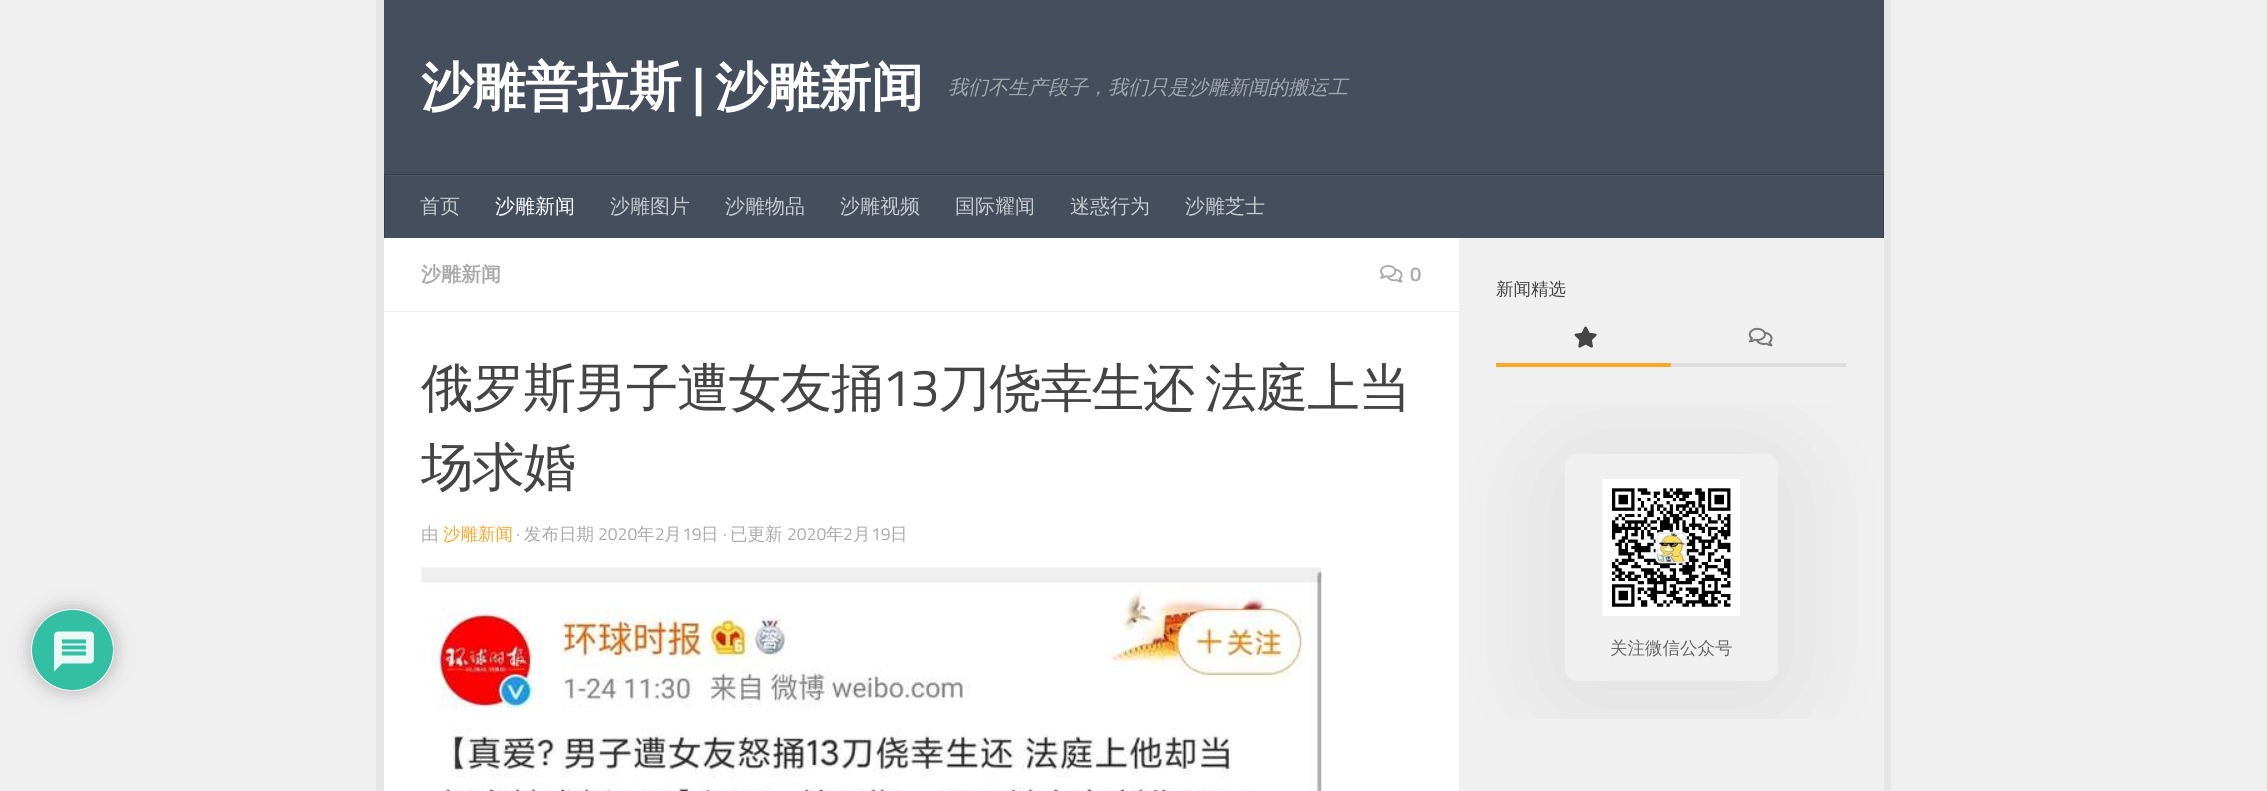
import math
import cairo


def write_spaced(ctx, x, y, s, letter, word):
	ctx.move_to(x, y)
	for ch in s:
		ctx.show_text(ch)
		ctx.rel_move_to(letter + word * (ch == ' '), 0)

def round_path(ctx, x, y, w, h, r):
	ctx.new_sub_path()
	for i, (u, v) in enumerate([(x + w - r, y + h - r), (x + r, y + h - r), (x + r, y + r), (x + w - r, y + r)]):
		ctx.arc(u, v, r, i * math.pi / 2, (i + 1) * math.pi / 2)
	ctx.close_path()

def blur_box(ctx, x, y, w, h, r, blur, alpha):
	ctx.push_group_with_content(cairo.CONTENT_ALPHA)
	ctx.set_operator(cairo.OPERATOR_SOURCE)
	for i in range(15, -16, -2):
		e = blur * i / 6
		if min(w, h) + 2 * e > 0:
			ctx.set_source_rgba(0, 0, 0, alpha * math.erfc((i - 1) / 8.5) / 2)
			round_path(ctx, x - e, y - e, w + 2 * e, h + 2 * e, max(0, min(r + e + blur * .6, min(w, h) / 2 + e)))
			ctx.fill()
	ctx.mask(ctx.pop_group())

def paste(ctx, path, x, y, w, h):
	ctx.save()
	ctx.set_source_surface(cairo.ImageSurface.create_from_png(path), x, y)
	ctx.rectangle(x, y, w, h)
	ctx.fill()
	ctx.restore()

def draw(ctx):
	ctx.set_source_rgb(0.941, 0.941, 0.941)
	ctx.paint()
	ctx.set_source_rgb(0.694, 0.694, 0.694)
	blur_box(ctx, 31, 609, 83, 82, 41, 9.5, 1)
	ctx.set_source_rgb(0.196, 0.749, 0.639)
	round_path(ctx, 31.5, 609.5, 82, 81, 40.5)
	ctx.fill_preserve()
	ctx.set_source_rgb(0.996, 0.996, 0.996)
	ctx.set_line_width(1)
	ctx.stroke()
	paste(ctx, 'media/1.png', 54, 631, 40, 41)
	ctx.set_source_rgb(0.902, 0.902, 0.902)
	ctx.rectangle(376, 0, 8, 791)
	ctx.rectangle(1884, 0, 7, 791)
	ctx.fill()
	ctx.set_source_rgb(0.271, 0.306, 0.361)
	ctx.rectangle(384, 0, 1500, 238)
	ctx.fill()
	ctx.set_source_rgb(0.306, 0.341, 0.392)
	ctx.rectangle(384, 175, 1500, 1)
	ctx.fill()
	ctx.select_font_face('WenQuanYi Zen Hei', cairo.FONT_SLANT_NORMAL, cairo.FONT_WEIGHT_BOLD)
	ctx.set_font_size(52.5)
	ctx.set_source_rgb(1, 1, 1)
	write_spaced(ctx, 421, 105, '沙雕普拉斯', -0.5, 0)
	ctx.select_font_face('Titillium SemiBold')
	write_spaced(ctx, 692, 105, '|', -0.5, 0)
	ctx.select_font_face('WenQuanYi Zen Hei', cairo.FONT_SLANT_NORMAL, cairo.FONT_WEIGHT_BOLD)
	write_spaced(ctx, 715, 105, '沙雕新闻', -0.5, 0)
	ctx.select_font_face('WenQuanYi Zen Hei Medium', cairo.FONT_SLANT_ITALIC)
	ctx.set_font_size(20)
	ctx.set_source_rgb(0.635, 0.655, 0.682)
	ctx.move_to(948, 94)
	ctx.show_text('我们不生产段子，我们只是沙雕新闻的搬运工')
	ctx.set_source_rgb(0.216, 0.243, 0.29)
	ctx.new_path()
	ctx.move_to(384, 174)
	ctx.line_to(384, 175)
	ctx.line_to(1884, 175)
	ctx.line_to(1884, 236)
	ctx.line_to(1884, 174)
	ctx.close_path()
	ctx.fill()
	ctx.rectangle(1883, 175, 1, 63)
	ctx.fill()
	ctx.set_source_rgb(0.255, 0.282, 0.325)
	ctx.rectangle(1883, 175, 1, 1)
	ctx.fill()
	ctx.set_source_rgb(0.216, 0.243, 0.29)
	ctx.rectangle(384, 175, 1, 63)
	ctx.fill()
	ctx.set_source_rgb(0.255, 0.282, 0.325)
	ctx.rectangle(384, 175, 1, 1)
	ctx.fill()
	ctx.select_font_face('WenQuanYi Zen Hei Medium')
	ctx.set_source_rgb(0.78, 0.792, 0.808)
	ctx.move_to(420, 213)
	ctx.show_text('首页')
	ctx.set_source_rgb(1, 1, 1)
	ctx.move_to(495, 213)
	ctx.show_text('沙雕新闻')
	ctx.set_source_rgb(0.78, 0.792, 0.808)
	for x, y, s in [
		(610, 213, '沙雕图片'),
		(725, 213, '沙雕物品'),
		(840, 213, '沙雕视频'),
		(955, 213, '国际耀闻'),
		(1070, 213, '迷惑行为'),
		(1185, 213, '沙雕芝士'),
	]:
		ctx.move_to(x, y)
		ctx.show_text(s)
	ctx.set_source_rgb(1, 1, 1)
	ctx.rectangle(384, 238, 1075, 553)
	ctx.fill()
	ctx.set_source_rgb(0.933, 0.933, 0.933)
	ctx.rectangle(384, 311, 1075, 1)
	ctx.fill()
	ctx.select_font_face('WenQuanYi Zen Hei', cairo.FONT_SLANT_NORMAL, cairo.FONT_WEIGHT_BOLD)
	ctx.set_source_rgb(0.667, 0.667, 0.667)
	ctx.move_to(421, 281)
	ctx.show_text('沙雕新闻')
	paste(ctx, 'media/2.png', 1380, 265, 23, 18)
	ctx.select_font_face('Titillium SemiBold')
	ctx.move_to(1410, 281)
	ctx.show_text('0')
	ctx.select_font_face('WenQuanYi Zen Hei Medium')
	ctx.set_font_size(52.5)
	ctx.set_source_rgb(0.267, 0.267, 0.267)
	write_spaced(ctx, 421, 406, '俄罗斯男子遭女友捅', -1.25, 0)
	ctx.select_font_face('Titillium')
	write_spaced(ctx, 882, 406, '13', -1.25, 0)
	ctx.select_font_face('WenQuanYi Zen Hei Medium')
	write_spaced(ctx, 938, 406, '刀侥幸生还 法庭上当', -1.25, -4)
	write_spaced(ctx, 421, 485, '场求婚', -1.25, 0)
	ctx.set_font_size(17.5)
	ctx.set_source_rgb(0.667, 0.667, 0.667)
	ctx.move_to(421, 540)
	ctx.show_text('由')
	ctx.set_source_rgb(0.984, 0.659, 0.153)
	ctx.move_to(443, 540)
	ctx.show_text('沙雕新闻')
	ctx.select_font_face('Titillium')
	ctx.set_source_rgb(0.667, 0.667, 0.667)
	ctx.move_to(516, 540)
	ctx.show_text('·')
	ctx.select_font_face('WenQuanYi Zen Hei Medium')
	ctx.move_to(524, 540)
	ctx.show_text('发布日期')
	ctx.select_font_face('Titillium')
	ctx.move_to(598, 540)
	ctx.show_text('2020')
	ctx.select_font_face('WenQuanYi Zen Hei Medium')
	ctx.move_to(637, 540)
	ctx.show_text('年')
	ctx.select_font_face('Titillium')
	ctx.move_to(655, 540)
	ctx.show_text('2')
	ctx.select_font_face('WenQuanYi Zen Hei Medium')
	ctx.move_to(664, 540)
	ctx.show_text('月')
	ctx.select_font_face('Titillium')
	ctx.move_to(682, 540)
	ctx.show_text('19')
	ctx.select_font_face('WenQuanYi Zen Hei Medium')
	ctx.move_to(701, 540)
	ctx.show_text('日')
	ctx.select_font_face('Titillium')
	ctx.move_to(723, 540)
	ctx.show_text('·')
	ctx.select_font_face('WenQuanYi Zen Hei Medium')
	ctx.move_to(730, 540)
	ctx.show_text('已更新')
	ctx.select_font_face('Titillium')
	ctx.move_to(787, 540)
	ctx.show_text('2020')
	ctx.select_font_face('WenQuanYi Zen Hei Medium')
	ctx.move_to(826, 540)
	ctx.show_text('年')
	ctx.select_font_face('Titillium')
	ctx.move_to(843, 540)
	ctx.show_text('2')
	ctx.select_font_face('WenQuanYi Zen Hei Medium')
	ctx.move_to(853, 540)
	ctx.show_text('月')
	ctx.select_font_face('Titillium')
	ctx.move_to(871, 540)
	ctx.show_text('19')
	ctx.select_font_face('WenQuanYi Zen Hei Medium')
	ctx.move_to(890, 540)
	ctx.show_text('日')
	paste(ctx, 'media/3.png', 421, 567, 901, 224)
	ctx.set_source_rgb(0.267, 0.267, 0.267)
	ctx.move_to(1496, 295)
	ctx.show_text('新闻精选')
	ctx.set_source_rgb(0.867, 0.867, 0.867)
	ctx.rectangle(1671, 363, 175, 4)
	ctx.fill()
	ctx.set_source_rgb(0.984, 0.659, 0.153)
	ctx.rectangle(1496, 363, 175, 4)
	ctx.fill()
	paste(ctx, 'media/4.png', 1574, 326, 23, 22)
	paste(ctx, 'media/5.png', 1748, 327, 25, 20)
	ctx.save()
	ctx.rectangle(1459, 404, 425, 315)
	ctx.clip()
	ctx.set_fill_rule(cairo.FILL_RULE_EVEN_ODD)
	ctx.new_path()
	ctx.move_to(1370, 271)
	ctx.line_to(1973, 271)
	ctx.line_to(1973, 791)
	ctx.line_to(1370, 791)
	ctx.close_path()
	ctx.move_to(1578, 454)
	ctx.line_to(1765, 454)
	ctx.curve_to(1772, 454, 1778, 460, 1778, 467)
	ctx.line_to(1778, 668)
	ctx.curve_to(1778, 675, 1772, 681, 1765, 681)
	ctx.line_to(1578, 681)
	ctx.curve_to(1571, 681, 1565, 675, 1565, 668)
	ctx.line_to(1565, 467)
	ctx.curve_to(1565, 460, 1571, 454, 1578, 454)
	ctx.close_path()
	ctx.clip()
	ctx.set_source_rgb(0, 0, 0)
	blur_box(ctx, 1559, 460, 225, 240, 19, 62.5, 0.08)
	ctx.restore()
	paste(ctx, 'media/6.png', 1602, 479, 138, 137)
	ctx.set_source_rgb(0.4, 0.4, 0.4)
	ctx.move_to(1610, 654)
	ctx.show_text('关注微信公众号')


surface = cairo.ImageSurface(cairo.FORMAT_RGB24, 2267, 791)
ctx = cairo.Context(surface)
options = cairo.FontOptions()
options.set_hint_metrics(cairo.HINT_METRICS_OFF)
options.set_hint_style(cairo.HINT_STYLE_NONE)
ctx.set_font_options(options)
ctx.set_miter_limit(4)
draw(ctx)
surface.write_to_png('image.png')
